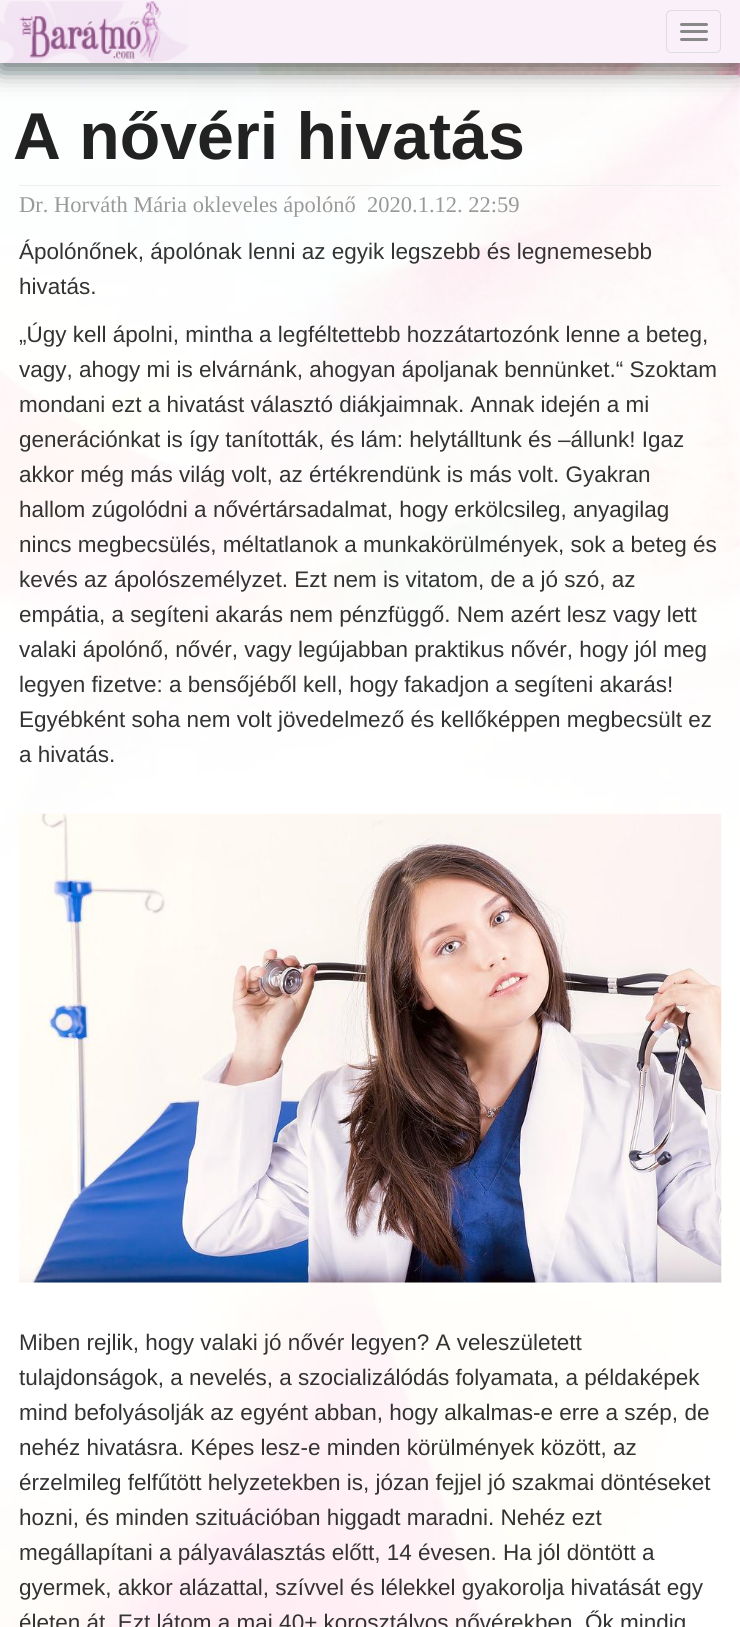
import math
import cairo


def round_path(ctx, x, y, w, h, r):
	ctx.new_sub_path()
	for i, (u, v) in enumerate([(x + w - r, y + h - r), (x + r, y + h - r), (x + r, y + r), (x + w - r, y + r)]):
		ctx.arc(u, v, r, i * math.pi / 2, (i + 1) * math.pi / 2)
	ctx.close_path()

def blur_box(ctx, x, y, w, h, r, blur, alpha):
	ctx.push_group_with_content(cairo.CONTENT_ALPHA)
	ctx.set_operator(cairo.OPERATOR_SOURCE)
	for i in range(15, -16, -2):
		e = blur * i / 6
		if min(w, h) + 2 * e > 0:
			ctx.set_source_rgba(0, 0, 0, alpha * math.erfc((i - 1) / 8.5) / 2)
			round_path(ctx, x - e, y - e, w + 2 * e, h + 2 * e, max(0, min(r + e + blur * .6, min(w, h) / 2 + e)))
			ctx.fill()
	ctx.mask(ctx.pop_group())

def paste(ctx, path, x, y, w, h):
	ctx.save()
	ctx.set_source_surface(cairo.ImageSurface.create_from_png(path), x, y)
	ctx.rectangle(x, y, w, h)
	ctx.fill()
	ctx.restore()

def draw(ctx):
	ctx.set_source_rgb(1, 1, 1)
	ctx.paint()
	paste(ctx, 'media/1.png', 0, 63, 740, 1564)
	ctx.set_source_rgba(1, 1, 1, 0.9)
	round_path(ctx, 0, 75, 740, 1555, 2.5)
	ctx.fill()
	ctx.set_source_rgb(0, 0, 0)
	blur_box(ctx, 0, 6, 740, 63, 0, 12.5, 0.6)
	ctx.set_source_rgb(0.973, 0.941, 0.973)
	ctx.rectangle(0, 0, 740, 63)
	ctx.fill()
	paste(ctx, 'media/2.png', 0, 1, 189, 62)
	round_path(ctx, 666.5, 10.5, 54, 42, 4.5)
	ctx.set_source_rgb(0.867, 0.867, 0.867)
	ctx.set_line_width(1)
	ctx.stroke()
	ctx.set_source_rgb(0.533, 0.533, 0.533)
	round_path(ctx, 680, 23, 28, 3, 1.5)
	ctx.fill()
	round_path(ctx, 680, 30, 28, 3, 1.5)
	ctx.fill()
	round_path(ctx, 680, 38, 28, 3, 1.5)
	ctx.fill()
	ctx.select_font_face('Liberation Sans', cairo.FONT_SLANT_NORMAL, cairo.FONT_WEIGHT_BOLD)
	ctx.set_font_size(66.25)
	ctx.set_source_rgb(0.133, 0.133, 0.133)
	ctx.move_to(13, 159)
	ctx.show_text('A nővéri hivatás')
	ctx.set_source_rgb(0.933, 0.933, 0.933)
	ctx.rectangle(19, 185, 702, 1)
	ctx.fill()
	ctx.select_font_face('Liberation Serif')
	ctx.set_font_size(22.5)
	ctx.set_source_rgb(0.6, 0.6, 0.6)
	ctx.move_to(19, 212)
	ctx.show_text('Dr. Horváth Mária okleveles ápolónő  2020.1.12. 22:59')
	ctx.select_font_face('Liberation Sans')
	ctx.set_source_rgb(0.2, 0.2, 0.2)
	for x, y, s in [
		(19, 259, 'Ápolónőnek, ápolónak lenni az egyik legszebb és legnemesebb'),
		(19, 294, 'hivatás.'),
		(19, 342, '„Úgy kell ápolni, mintha a legféltettebb hozzátartozónk lenne a beteg,'),
		(19, 377, 'vagy, ahogy mi is elvárnánk, ahogyan ápoljanak bennünket.“ Szoktam'),
		(19, 412, 'mondani ezt a hivatást választó diákjaimnak. Annak idején a mi'),
		(19, 447, 'generációnkat is így tanították, és lám: helytálltunk és –állunk! Igaz'),
		(19, 482, 'akkor még más világ volt, az értékrendünk is más volt. Gyakran'),
		(19, 517, 'hallom zúgolódni a nővértársadalmat, hogy erkölcsileg, anyagilag'),
		(19, 552, 'nincs megbecsülés, méltatlanok a munkakörülmények, sok a beteg és'),
		(19, 587, 'kevés az ápolószemélyzet. Ezt nem is vitatom, de a jó szó, az'),
		(19, 622, 'empátia, a segíteni akarás nem pénzfüggő. Nem azért lesz vagy lett'),
		(19, 657, 'valaki ápolónő, nővér, vagy legújabban praktikus nővér, hogy jól meg'),
		(19, 692, 'legyen fizetve: a bensőjéből kell, hogy fakadjon a segíteni akarás!'),
		(19, 727, 'Egyébként soha nem volt jövedelmező és kellőképpen megbecsült ez'),
		(19, 762, 'a hivatás.'),
	]:
		ctx.move_to(x, y)
		ctx.show_text(s)
	paste(ctx, 'media/3.png', 19, 813, 703, 470)
	for x, y, s in [
		(19, 1350, 'Miben rejlik, hogy valaki jó nővér legyen? A veleszületett'),
		(19, 1385, 'tulajdonságok, a nevelés, a szocializálódás folyamata, a példaképek'),
		(19, 1420, 'mind befolyásolják az egyént abban, hogy alkalmas-e erre a szép, de'),
		(19, 1455, 'nehéz hivatásra. Képes lesz-e minden körülmények között, az'),
		(19, 1490, 'érzelmileg felfűtött helyzetekben is, józan fejjel jó szakmai döntéseket'),
		(19, 1525, 'hozni, és minden szituációban higgadt maradni. Nehéz ezt'),
		(19, 1560, 'megállapítani a pályaválasztás előtt, 14 évesen. Ha jól döntött a'),
		(19, 1595, 'gyermek, akkor alázattal, szívvel és lélekkel gyakorolja hivatását egy'),
		(19, 1630, 'életen át. Ezt látom a mai 40+ korosztályos nővérekben. Ők mindig'),
	]:
		ctx.move_to(x, y)
		ctx.show_text(s)


surface = cairo.ImageSurface(cairo.FORMAT_RGB24, 740, 1627)
ctx = cairo.Context(surface)
options = cairo.FontOptions()
options.set_hint_metrics(cairo.HINT_METRICS_OFF)
options.set_hint_style(cairo.HINT_STYLE_NONE)
ctx.set_font_options(options)
ctx.set_miter_limit(4)
draw(ctx)
surface.write_to_png('image.png')
